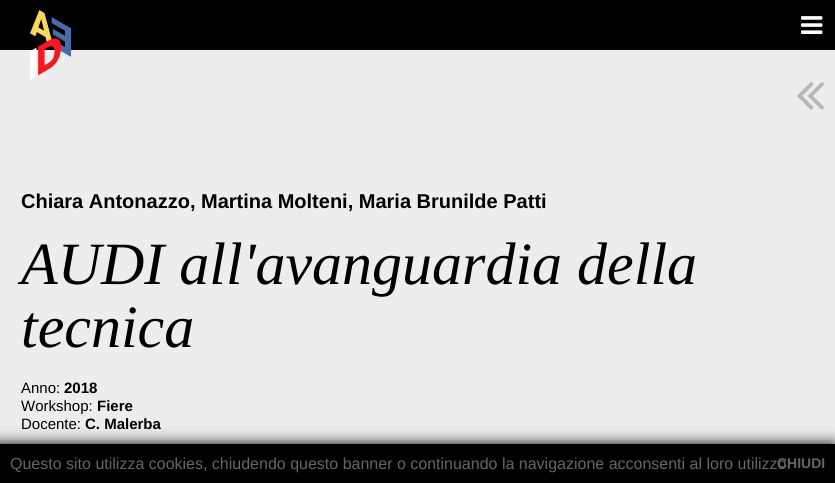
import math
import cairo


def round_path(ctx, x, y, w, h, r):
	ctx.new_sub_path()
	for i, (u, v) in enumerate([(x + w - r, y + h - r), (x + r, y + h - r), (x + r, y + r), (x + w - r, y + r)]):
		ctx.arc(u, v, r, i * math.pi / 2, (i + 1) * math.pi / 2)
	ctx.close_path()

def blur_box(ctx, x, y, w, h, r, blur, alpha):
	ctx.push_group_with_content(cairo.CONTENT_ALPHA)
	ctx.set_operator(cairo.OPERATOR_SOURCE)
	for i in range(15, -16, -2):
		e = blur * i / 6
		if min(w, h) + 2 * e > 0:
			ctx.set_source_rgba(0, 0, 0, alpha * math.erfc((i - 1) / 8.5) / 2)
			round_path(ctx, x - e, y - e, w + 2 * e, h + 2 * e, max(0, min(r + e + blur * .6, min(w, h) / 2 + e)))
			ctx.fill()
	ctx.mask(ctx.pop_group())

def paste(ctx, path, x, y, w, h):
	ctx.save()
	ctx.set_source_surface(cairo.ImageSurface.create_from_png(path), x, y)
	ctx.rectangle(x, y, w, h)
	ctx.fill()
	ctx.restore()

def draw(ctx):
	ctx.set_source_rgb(0.929, 0.929, 0.929)
	ctx.paint()
	ctx.set_source_rgb(0, 0, 0)
	ctx.rectangle(0, 0, 835, 50)
	ctx.fill()
	paste(ctx, 'media/1.png', 30, 10, 41, 70)
	paste(ctx, 'media/2.png', 801, 16, 22, 18)
	paste(ctx, 'media/3.png', 797, 82, 28, 28)
	ctx.select_font_face('Liberation Sans', cairo.FONT_SLANT_NORMAL, cairo.FONT_WEIGHT_BOLD)
	ctx.set_font_size(20)
	ctx.move_to(21, 208)
	ctx.show_text('Chiara Antonazzo, Martina Molteni, Maria Brunilde Patti')
	ctx.select_font_face('Liberation Serif', cairo.FONT_SLANT_ITALIC)
	ctx.set_font_size(60)
	ctx.move_to(21, 284)
	ctx.show_text('AUDI all\'avanguardia della')
	ctx.move_to(21, 347)
	ctx.show_text('tecnica')
	ctx.select_font_face('Liberation Sans')
	ctx.set_font_size(15)
	ctx.move_to(21, 393)
	ctx.show_text('Anno:')
	ctx.select_font_face('Liberation Sans', cairo.FONT_SLANT_NORMAL, cairo.FONT_WEIGHT_BOLD)
	ctx.move_to(64, 393)
	ctx.show_text('2018')
	ctx.select_font_face('Liberation Sans')
	ctx.move_to(21, 411)
	ctx.show_text('Workshop:')
	ctx.select_font_face('Liberation Sans', cairo.FONT_SLANT_NORMAL, cairo.FONT_WEIGHT_BOLD)
	ctx.move_to(97, 411)
	ctx.show_text('Fiere')
	ctx.select_font_face('Liberation Sans')
	ctx.move_to(21, 429)
	ctx.show_text('Docente:')
	ctx.select_font_face('Liberation Sans', cairo.FONT_SLANT_NORMAL, cairo.FONT_WEIGHT_BOLD)
	ctx.move_to(85, 429)
	ctx.show_text('C. Malerba')
	ctx.set_source_rgb(0, 0, 0)
	blur_box(ctx, -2, 444, 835, 39, 0, 7.5, 1)
	ctx.set_source_rgb(0, 0, 0)
	ctx.rectangle(0, 444, 835, 39)
	ctx.fill()
	ctx.select_font_face('Liberation Sans')
	ctx.set_font_size(16)
	ctx.set_source_rgb(0.4, 0.4, 0.4)
	ctx.move_to(10, 469)
	ctx.show_text('Questo sito utilizza cookies, chiudendo questo banner o continuando la navigazione acconsenti al loro utilizzo.')
	ctx.select_font_face('Liberation Sans', cairo.FONT_SLANT_NORMAL, cairo.FONT_WEIGHT_BOLD)
	ctx.set_font_size(14)
	ctx.move_to(777, 468)
	ctx.show_text('CHIUDI')


surface = cairo.ImageSurface(cairo.FORMAT_RGB24, 835, 483)
ctx = cairo.Context(surface)
options = cairo.FontOptions()
options.set_hint_metrics(cairo.HINT_METRICS_OFF)
options.set_hint_style(cairo.HINT_STYLE_NONE)
ctx.set_font_options(options)
ctx.set_miter_limit(4)
draw(ctx)
surface.write_to_png('image.png')
